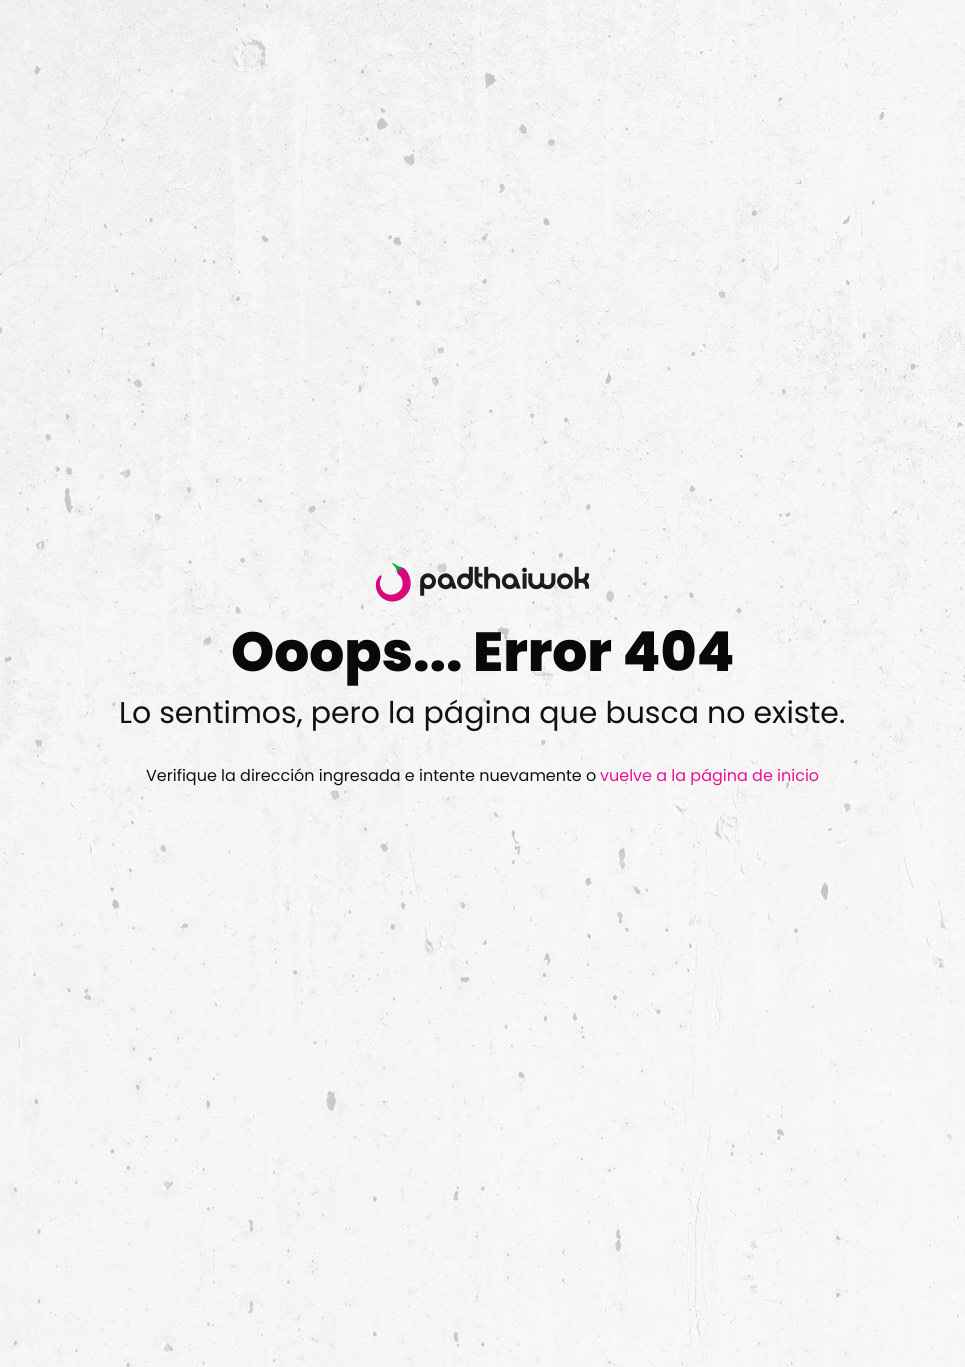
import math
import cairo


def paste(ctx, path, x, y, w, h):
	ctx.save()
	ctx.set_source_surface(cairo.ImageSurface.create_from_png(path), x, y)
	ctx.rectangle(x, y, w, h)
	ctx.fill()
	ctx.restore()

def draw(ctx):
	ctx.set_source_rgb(1, 1, 1)
	ctx.paint()
	paste(ctx, 'media/1.png', 0, 0, 965, 1367)
	paste(ctx, 'media/2.png', 375, 563, 215, 39)
	ctx.select_font_face('Poppins ExtraBold')
	ctx.set_font_size(55)
	ctx.set_source_rgb(0.039, 0.039, 0.039)
	ctx.move_to(231, 671)
	ctx.show_text('Ooops... Error 404')
	ctx.select_font_face('Poppins')
	ctx.set_font_size(30)
	ctx.set_source_rgb(0.067, 0.067, 0.067)
	ctx.move_to(119, 723)
	ctx.show_text('Lo sentimos, pero la página que busca no existe.')
	ctx.set_font_size(16)
	ctx.move_to(146, 781)
	ctx.show_text('Verifique la dirección ingresada e intente nuevamente o')
	ctx.set_source_rgb(0.914, 0.067, 0.588)
	ctx.move_to(600, 781)
	ctx.show_text('vuelve a la página de inicio')


surface = cairo.ImageSurface(cairo.FORMAT_RGB24, 965, 1367)
ctx = cairo.Context(surface)
options = cairo.FontOptions()
options.set_hint_metrics(cairo.HINT_METRICS_OFF)
options.set_hint_style(cairo.HINT_STYLE_NONE)
ctx.set_font_options(options)
ctx.set_miter_limit(4)
draw(ctx)
surface.write_to_png('image.png')
